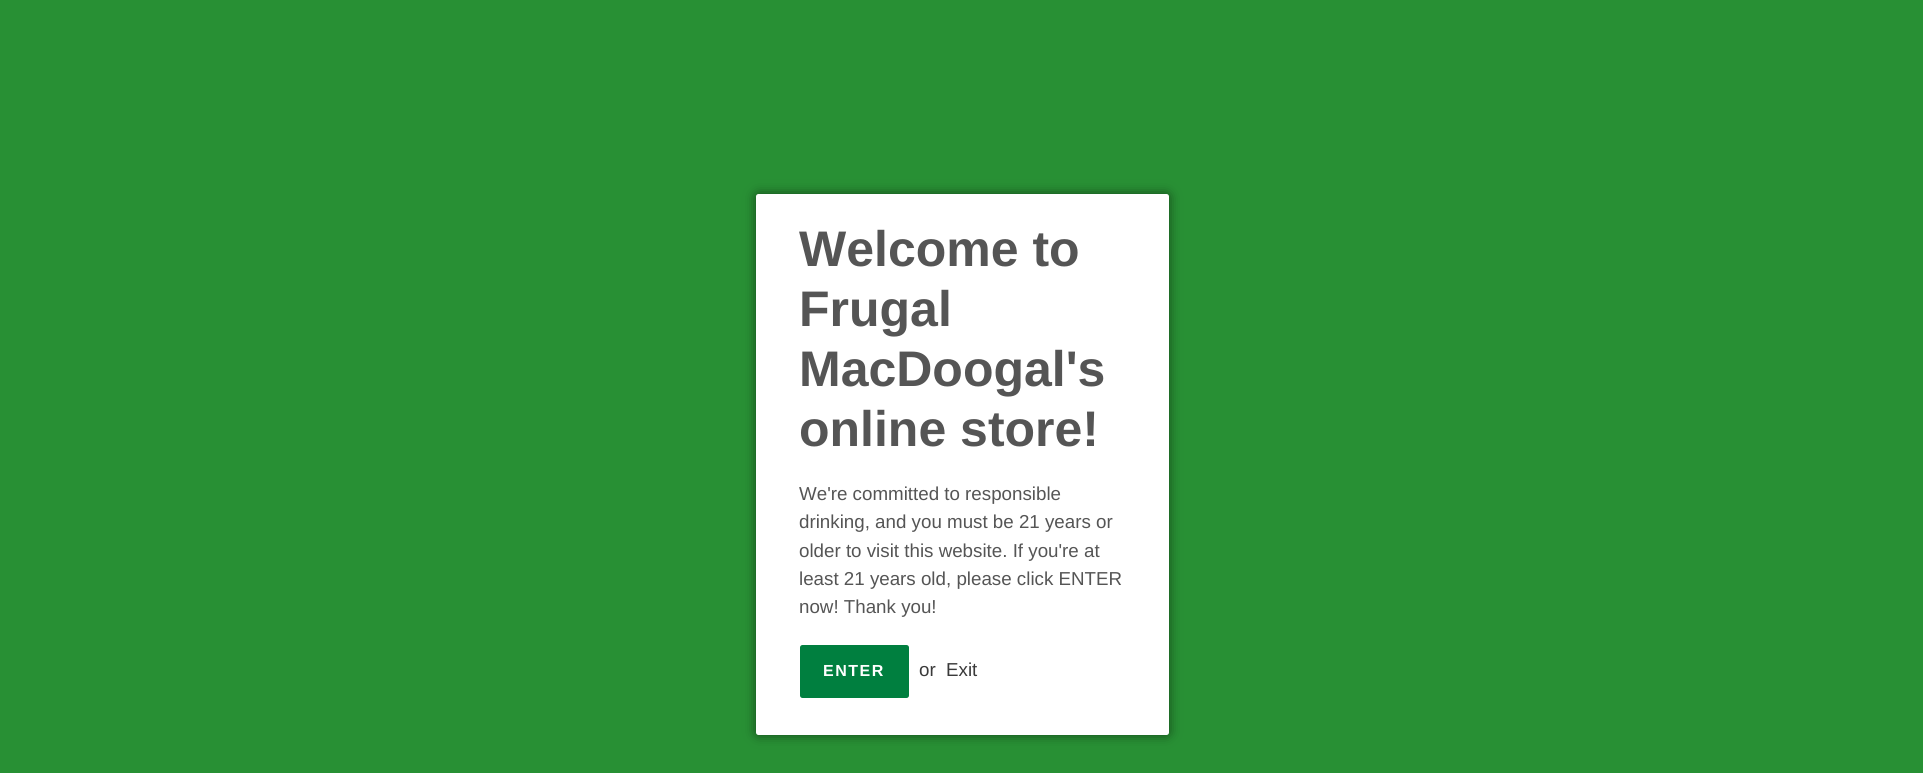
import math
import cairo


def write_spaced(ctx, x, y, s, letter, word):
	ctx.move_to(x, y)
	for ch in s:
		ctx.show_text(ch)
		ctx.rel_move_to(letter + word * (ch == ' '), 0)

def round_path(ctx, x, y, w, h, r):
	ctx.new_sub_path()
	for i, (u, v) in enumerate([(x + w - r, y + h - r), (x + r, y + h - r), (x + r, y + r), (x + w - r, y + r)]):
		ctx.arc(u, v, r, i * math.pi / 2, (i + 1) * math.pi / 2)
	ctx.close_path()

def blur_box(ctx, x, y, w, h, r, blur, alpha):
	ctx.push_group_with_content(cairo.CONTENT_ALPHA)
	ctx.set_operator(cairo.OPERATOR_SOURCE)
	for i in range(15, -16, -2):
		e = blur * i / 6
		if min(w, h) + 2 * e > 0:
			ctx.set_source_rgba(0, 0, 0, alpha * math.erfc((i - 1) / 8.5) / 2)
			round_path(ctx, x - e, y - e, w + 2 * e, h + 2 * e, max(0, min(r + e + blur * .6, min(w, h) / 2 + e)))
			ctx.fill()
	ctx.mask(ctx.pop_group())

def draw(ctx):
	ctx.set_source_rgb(0.157, 0.565, 0.204)
	ctx.paint()
	ctx.set_source_rgb(0, 0, 0)
	blur_box(ctx, 756, 194, 413, 541, 2.5, 6, 0.5)
	ctx.set_source_rgb(1, 1, 1)
	round_path(ctx, 756, 194, 413, 541, 2.5)
	ctx.fill()
	ctx.select_font_face('Liberation Sans', cairo.FONT_SLANT_NORMAL, cairo.FONT_WEIGHT_BOLD)
	ctx.set_font_size(50)
	ctx.set_source_rgb(0.333, 0.333, 0.333)
	for x, y, s in [
		(799, 266, 'Welcome to'),
		(799, 326, 'Frugal'),
		(799, 386, 'MacDoogal\'s'),
		(799, 446, 'online store!'),
	]:
		ctx.move_to(x, y)
		ctx.show_text(s)
	ctx.select_font_face('Liberation Sans')
	ctx.set_font_size(18.75)
	for x, y, s in [
		(799, 500, 'We\'re committed to responsible'),
		(799, 528, 'drinking, and you must be 21 years or'),
		(799, 557, 'older to visit this website. If you\'re at'),
		(799, 585, 'least 21 years old, please click ENTER'),
		(799, 613, 'now! Thank you!'),
	]:
		ctx.move_to(x, y)
		ctx.show_text(s)
	ctx.set_source_rgb(0, 0.498, 0.247)
	round_path(ctx, 800, 645, 109, 53, 2.5)
	ctx.fill()
	ctx.select_font_face('Liberation Sans', cairo.FONT_SLANT_NORMAL, cairo.FONT_WEIGHT_BOLD)
	ctx.set_font_size(16)
	ctx.set_source_rgb(1, 1, 1)
	write_spaced(ctx, 823, 676, 'ENTER', 1.5, 0)
	ctx.select_font_face('Liberation Sans')
	ctx.set_font_size(18.75)
	ctx.set_source_rgb(0.227, 0.227, 0.227)
	ctx.move_to(919, 676)
	ctx.show_text('or')
	ctx.move_to(946, 676)
	ctx.show_text('Exit')


surface = cairo.ImageSurface(cairo.FORMAT_RGB24, 1923, 773)
ctx = cairo.Context(surface)
options = cairo.FontOptions()
options.set_hint_metrics(cairo.HINT_METRICS_OFF)
options.set_hint_style(cairo.HINT_STYLE_NONE)
ctx.set_font_options(options)
ctx.set_miter_limit(4)
draw(ctx)
surface.write_to_png('image.png')
